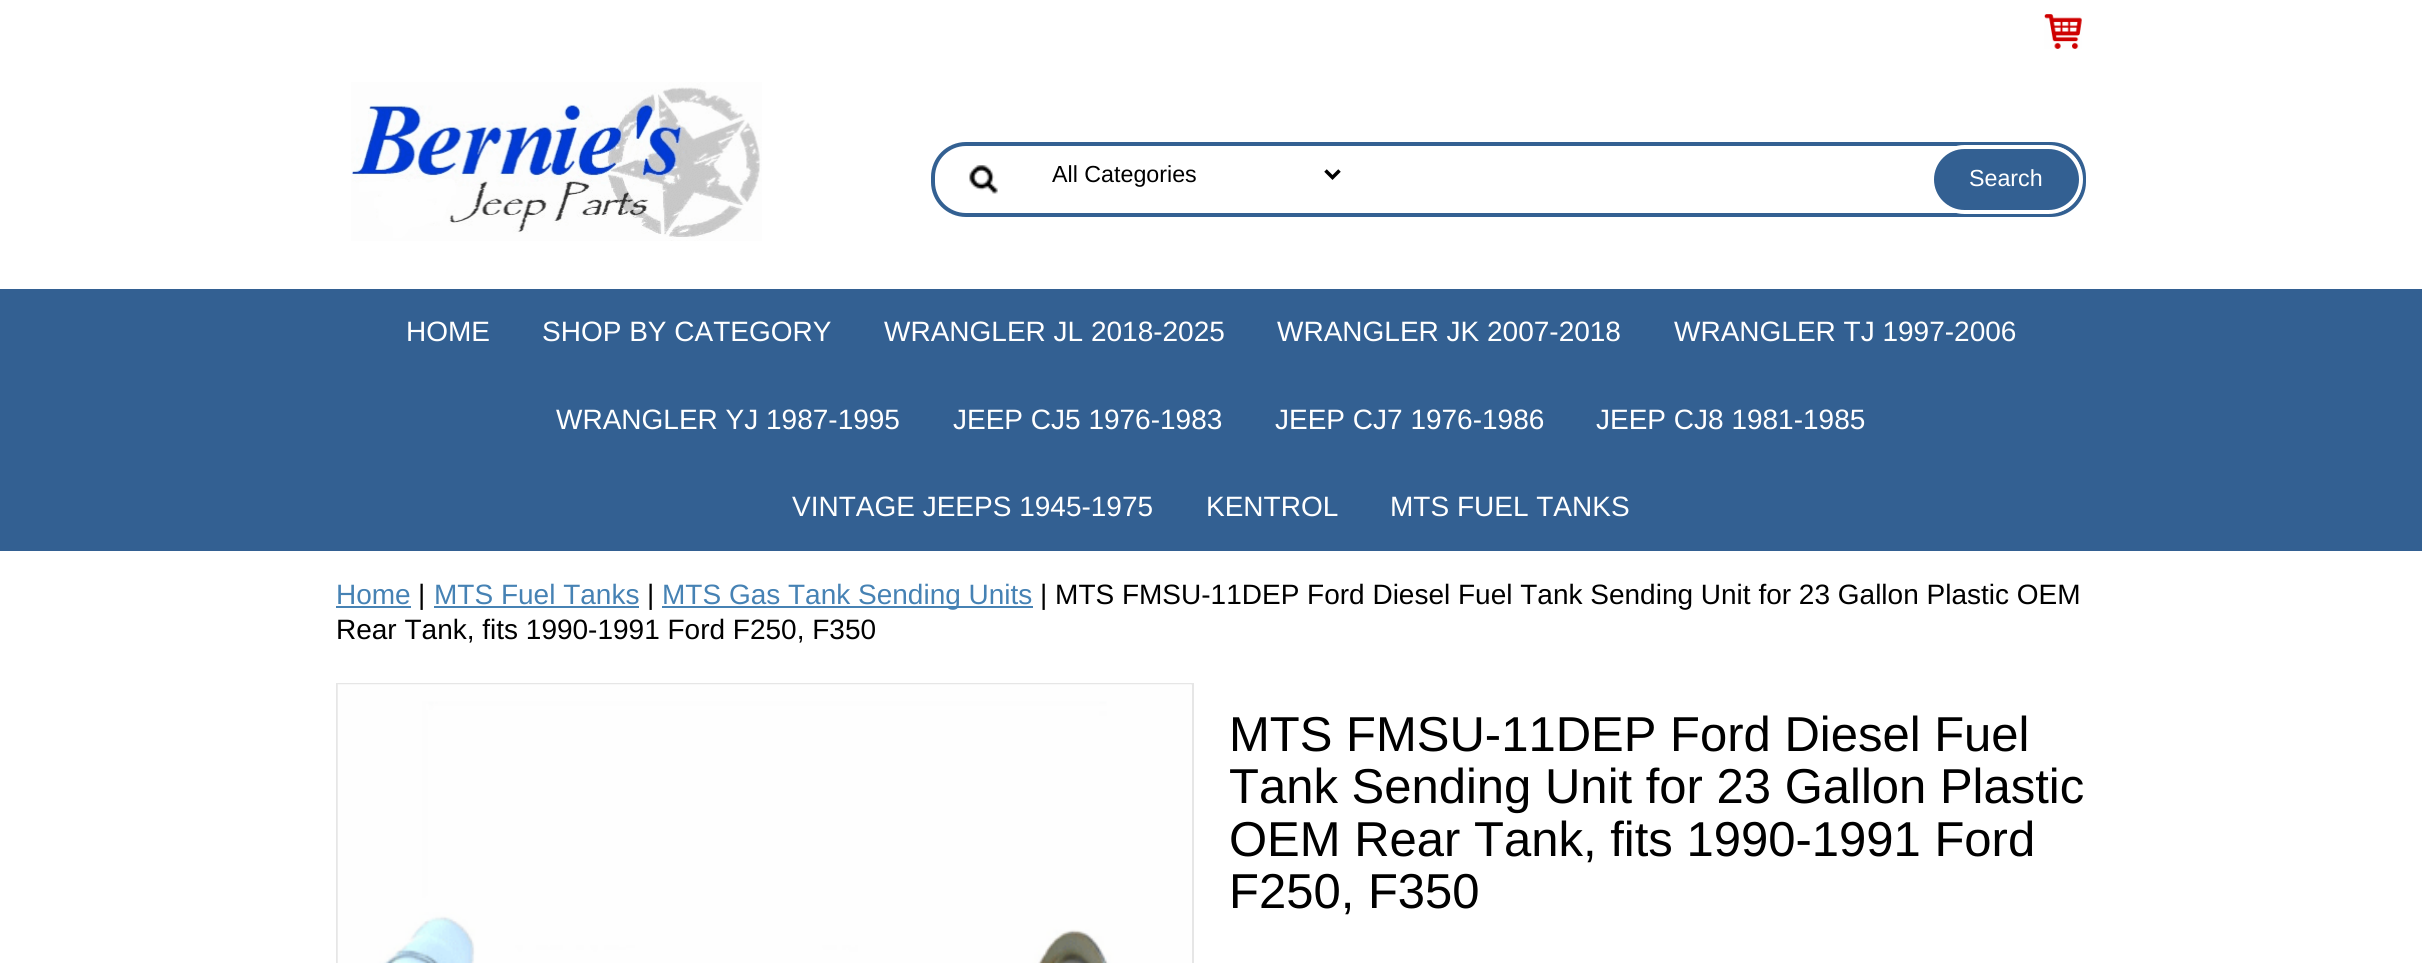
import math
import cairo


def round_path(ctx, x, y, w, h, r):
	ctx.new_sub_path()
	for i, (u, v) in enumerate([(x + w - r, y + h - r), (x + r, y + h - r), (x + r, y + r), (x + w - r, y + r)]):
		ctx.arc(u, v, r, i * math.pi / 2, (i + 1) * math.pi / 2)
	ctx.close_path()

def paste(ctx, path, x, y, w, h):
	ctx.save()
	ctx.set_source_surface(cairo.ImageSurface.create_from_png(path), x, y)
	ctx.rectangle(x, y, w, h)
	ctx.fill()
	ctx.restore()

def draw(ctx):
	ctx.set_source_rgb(1, 1, 1)
	ctx.paint()
	paste(ctx, 'media/1.png', 2044, 14, 38, 35)
	paste(ctx, 'media/2.png', 351, 82, 411, 159)
	paste(ctx, 'media/3.png', 969, 165, 29, 29)
	round_path(ctx, 933, 144, 1151, 71, 33)
	ctx.set_source_rgb(0.2, 0.376, 0.573)
	ctx.set_line_width(4)
	ctx.stroke()
	ctx.new_path()
	ctx.move_to(1325.5, 170.5)
	ctx.line_to(1332.5, 177.5)
	ctx.line_to(1339.5, 170.5)
	ctx.set_source_rgb(0, 0, 0)
	ctx.set_line_width(3.5)
	ctx.stroke()
	ctx.select_font_face('Liberation Sans')
	ctx.set_font_size(23.25)
	ctx.move_to(1052, 182)
	ctx.show_text('All Categories')
	ctx.set_source_rgb(0.2, 0.376, 0.573)
	round_path(ctx, 1932, 147, 149, 65, 32.5)
	ctx.fill_preserve()
	ctx.set_source_rgb(1, 1, 1)
	ctx.set_line_width(4)
	ctx.stroke()
	ctx.move_to(1969, 186)
	ctx.show_text('Search')
	ctx.set_source_rgb(0.2, 0.376, 0.573)
	ctx.rectangle(0, 289, 2422, 262)
	ctx.fill()
	ctx.set_font_size(28)
	ctx.set_source_rgb(1, 1, 1)
	for x, y, s in [
		(406, 341, 'HOME'),
		(542, 341, 'SHOP BY CATEGORY'),
		(884, 341, 'WRANGLER JL 2018-2025'),
		(1277, 341, 'WRANGLER JK 2007-2018'),
		(1674, 341, 'WRANGLER TJ 1997-2006'),
		(556, 429, 'WRANGLER YJ 1987-1995'),
		(953, 429, 'JEEP CJ5 1976-1983'),
		(1275, 429, 'JEEP CJ7 1976-1986'),
		(1596, 429, 'JEEP CJ8 1981-1985'),
		(792, 516, 'VINTAGE JEEPS 1945-1975'),
		(1206, 516, 'KENTROL'),
		(1390, 516, 'MTS FUEL TANKS'),
	]:
		ctx.move_to(x, y)
		ctx.show_text(s)
	ctx.set_source_rgb(0.275, 0.51, 0.706)
	ctx.move_to(336, 604)
	ctx.show_text('Home')
	ctx.rectangle(336, 606, 75, 2)
	ctx.fill()
	ctx.set_source_rgb(0, 0, 0)
	ctx.move_to(418, 604)
	ctx.show_text('|')
	ctx.set_source_rgb(0.275, 0.51, 0.706)
	ctx.move_to(434, 604)
	ctx.show_text('MTS Fuel Tanks')
	ctx.rectangle(434, 606, 205, 2)
	ctx.fill()
	ctx.set_source_rgb(0, 0, 0)
	ctx.move_to(647, 604)
	ctx.show_text('|')
	ctx.set_source_rgb(0.275, 0.51, 0.706)
	ctx.rectangle(662, 606, 371, 2)
	ctx.fill()
	ctx.move_to(662, 604)
	ctx.show_text('MTS Gas Tank Sending Units')
	ctx.set_source_rgb(0, 0, 0)
	ctx.move_to(1040, 604)
	ctx.show_text('| MTS FMSU-11DEP Ford Diesel Fuel Tank Sending Unit for 23 Gallon Plastic OEM')
	ctx.move_to(336, 639)
	ctx.show_text('Rear Tank, fits 1990-1991 Ford F250, F350')
	ctx.rectangle(337, 684, 856, 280)
	ctx.set_source_rgb(0.902, 0.902, 0.902)
	ctx.set_line_width(2)
	ctx.stroke()
	paste(ctx, 'media/4.png', 337, 684, 855, 279)
	ctx.set_font_size(49)
	ctx.set_source_rgb(0, 0, 0)
	for x, y, s in [
		(1229, 751, 'MTS FMSU-11DEP Ford Diesel Fuel'),
		(1229, 803, 'Tank Sending Unit for 23 Gallon Plastic'),
		(1229, 856, 'OEM Rear Tank, fits 1990-1991 Ford'),
		(1229, 908, 'F250, F350'),
	]:
		ctx.move_to(x, y)
		ctx.show_text(s)


surface = cairo.ImageSurface(cairo.FORMAT_RGB24, 2422, 963)
ctx = cairo.Context(surface)
options = cairo.FontOptions()
options.set_hint_metrics(cairo.HINT_METRICS_OFF)
options.set_hint_style(cairo.HINT_STYLE_NONE)
ctx.set_font_options(options)
ctx.set_miter_limit(4)
draw(ctx)
surface.write_to_png('image.png')
